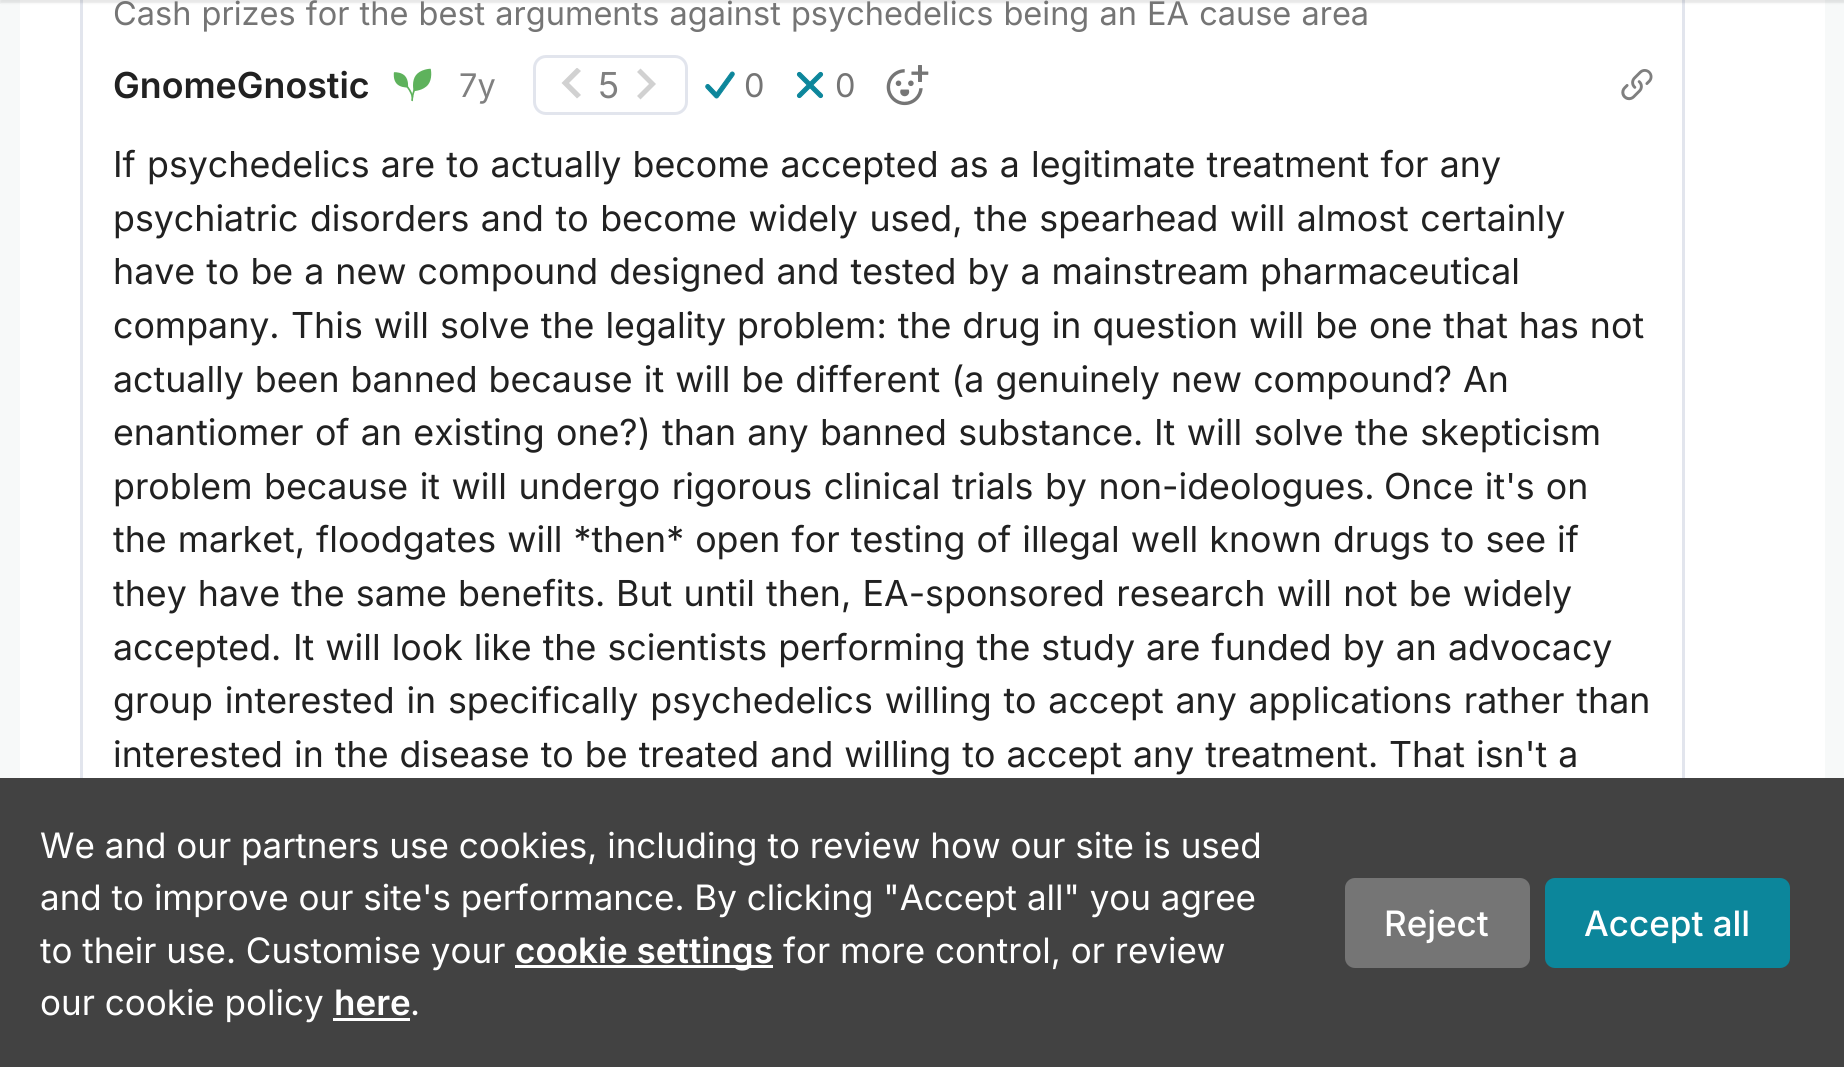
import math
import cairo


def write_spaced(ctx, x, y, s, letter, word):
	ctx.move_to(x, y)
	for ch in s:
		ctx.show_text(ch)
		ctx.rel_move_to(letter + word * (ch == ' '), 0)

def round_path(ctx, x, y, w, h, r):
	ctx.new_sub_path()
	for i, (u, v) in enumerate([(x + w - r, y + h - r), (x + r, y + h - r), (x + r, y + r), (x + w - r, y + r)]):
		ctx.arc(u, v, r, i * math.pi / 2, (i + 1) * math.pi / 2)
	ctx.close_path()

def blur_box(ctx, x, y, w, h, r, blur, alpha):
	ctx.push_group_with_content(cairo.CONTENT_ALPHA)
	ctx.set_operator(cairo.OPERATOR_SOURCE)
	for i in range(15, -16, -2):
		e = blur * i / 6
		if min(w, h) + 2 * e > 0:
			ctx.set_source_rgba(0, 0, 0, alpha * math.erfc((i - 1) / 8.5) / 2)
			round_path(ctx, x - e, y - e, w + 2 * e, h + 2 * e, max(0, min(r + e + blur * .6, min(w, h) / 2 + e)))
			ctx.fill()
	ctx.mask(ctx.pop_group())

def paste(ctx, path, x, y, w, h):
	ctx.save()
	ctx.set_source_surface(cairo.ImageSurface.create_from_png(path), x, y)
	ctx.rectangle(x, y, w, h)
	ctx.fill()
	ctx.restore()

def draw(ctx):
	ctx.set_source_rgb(0.965, 0.973, 0.976)
	ctx.paint()
	ctx.set_source_rgb(1, 1, 1)
	ctx.rectangle(20, 0, 1805, 778)
	ctx.fill()
	ctx.rectangle(81.5, -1.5, 1602, 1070)
	ctx.set_source_rgb(0.886, 0.898, 0.929)
	ctx.set_line_width(3)
	ctx.stroke()
	ctx.set_source_rgb(0, 0, 0)
	blur_box(ctx, 0, -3, 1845, 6, 0, 1, 0.05)
	blur_box(ctx, 0, -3, 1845, 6, 0, 1, 0.05)
	ctx.select_font_face('Inter')
	ctx.set_font_size(32.5)
	ctx.set_source_rgb(0.459, 0.459, 0.459)
	write_spaced(ctx, 113, 25, 'Cash prizes for the best arguments against psychedelics being an EA cause area', 0, 1)
	ctx.select_font_face('Inter SemiBold')
	ctx.set_font_size(35.75)
	ctx.set_source_rgb(0.129, 0.129, 0.129)
	ctx.move_to(113, 98)
	ctx.show_text('GnomeGnostic')
	paste(ctx, 'media/1.png', 393, 68, 39, 34)
	ctx.select_font_face('Inter')
	ctx.set_font_size(32.5)
	ctx.set_source_rgb(0.502, 0.502, 0.502)
	ctx.move_to(459, 97)
	ctx.show_text('7y')
	round_path(ctx, 534.5, 56.5, 152, 57, 11.5)
	ctx.set_source_rgb(0.886, 0.898, 0.929)
	ctx.stroke()
	ctx.set_source_rgb(0.82, 0.82, 0.82)
	ctx.new_path()
	ctx.move_to(581, 95)
	ctx.line_to(577, 98.5)
	ctx.line_to(561.5, 83)
	ctx.line_to(576.5, 68)
	ctx.line_to(577.5, 68)
	ctx.line_to(581, 71)
	ctx.line_to(569, 83)
	ctx.close_path()
	ctx.fill()
	ctx.set_font_size(35.75)
	ctx.set_source_rgb(0.502, 0.502, 0.502)
	ctx.move_to(598, 98)
	ctx.show_text('5')
	ctx.set_source_rgb(0.82, 0.82, 0.82)
	ctx.new_path()
	ctx.move_to(637, 72)
	ctx.line_to(649, 84)
	ctx.line_to(637, 96)
	ctx.line_to(640.5, 99.5)
	ctx.line_to(656, 84)
	ctx.line_to(640.5, 68.5)
	ctx.close_path()
	ctx.fill()
	paste(ctx, 'media/2.png', 705, 71, 30, 28)
	ctx.set_font_size(32.5)
	ctx.set_source_rgb(0.459, 0.459, 0.459)
	ctx.move_to(744, 97)
	ctx.show_text('0')
	paste(ctx, 'media/3.png', 796, 71, 28, 28)
	ctx.move_to(835, 97)
	ctx.show_text('0')
	paste(ctx, 'media/4.png', 886, 65, 43, 41)
	paste(ctx, 'media/5.png', 1621, 69, 32, 32)
	ctx.set_font_size(35.75)
	ctx.set_source_rgb(0.129, 0.129, 0.129)
	write_spaced(ctx, 113, 177, 'If psychedelics are to actually become accepted as a legitimate treatment for any', 0, 1.1)
	write_spaced(ctx, 113, 231, 'psychiatric disorders and to become widely used, the spearhead will almost certainly', 0, 1.5)
	write_spaced(ctx, 113, 284, 'have to be a new compound designed and tested by a mainstream pharmaceutical', 0, 1)
	ctx.move_to(113, 338)
	ctx.show_text('company.')
	write_spaced(ctx, 291, 338, 'This will solve the legality problem: the drug in question will be one that has not', 0, 0.9)
	write_spaced(ctx, 113, 392, 'actually been banned because it will be different (a genuinely new compound?', 0, 1)
	ctx.move_to(1463, 392)
	ctx.show_text('An')
	write_spaced(ctx, 113, 445, 'enantiomer of an existing one?) than any banned substance.', 0, 1.25)
	write_spaced(ctx, 1154, 445, 'It will solve the skepticism', 0, 1.5)
	write_spaced(ctx, 113, 499, 'problem because it will undergo rigorous clinical trials by non-ideologues.', 0, 1.5)
	write_spaced(ctx, 1384, 499, 'Once it\'s on', 0, 1)
	ctx.save()
	ctx.rectangle(113, 138, 1540, 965)
	ctx.clip()
	write_spaced(ctx, 113, 552, 'the market, floodgates will *then* open for testing of illegal well known drugs to see if', 0, 1)
	write_spaced(ctx, 113, 606, 'they have the same benefits.', 0, 1)
	ctx.restore()
	write_spaced(ctx, 616, 606, 'But until then, EA-sponsored research will not be widely', 0, 1.25)
	ctx.move_to(113, 660)
	ctx.show_text('accepted.')
	write_spaced(ctx, 293, 660, 'It will look like the scientists performing the study are funded by an advocacy', 0, 1)
	write_spaced(ctx, 113, 713, 'group interested in specifically psychedelics willing to accept any applications rather than', 0, 1.75)
	write_spaced(ctx, 113, 767, 'interested in the disease to be treated and willing to accept any treatment.', 0, 1)
	write_spaced(ctx, 1389, 767, 'That isn\'t a', 0, 1)
	ctx.set_source_rgb(0.259, 0.259, 0.259)
	ctx.rectangle(0, 778, 1844, 289)
	ctx.fill()
	ctx.set_font_size(35)
	ctx.set_source_rgb(1, 1, 1)
	for x, y, s in [
		(40, 858, 'We and our partners use cookies, including to review how our site is used'),
		(40, 910, 'and to improve our site\'s performance. By clicking "Accept all" you agree'),
		(40, 963, 'to their use. Customise your'),
	]:
		ctx.move_to(x, y)
		ctx.show_text(s)
	ctx.rectangle(515, 965, 258, 3)
	ctx.fill()
	ctx.select_font_face('Inter SemiBold')
	ctx.move_to(515, 963)
	ctx.show_text('cookie settings')
	ctx.select_font_face('Inter')
	ctx.move_to(783, 963)
	ctx.show_text('for more control, or review')
	ctx.move_to(40, 1015)
	ctx.show_text('our cookie policy')
	ctx.select_font_face('Inter SemiBold')
	ctx.move_to(334, 1015)
	ctx.show_text('here')
	ctx.rectangle(333, 1018, 77, 3)
	ctx.fill()
	ctx.select_font_face('Inter')
	ctx.move_to(410, 1015)
	ctx.show_text('.')
	ctx.set_source_rgb(0.459, 0.459, 0.459)
	round_path(ctx, 1345, 878, 185, 90, 10)
	ctx.fill()
	ctx.select_font_face('Inter Medium')
	ctx.set_source_rgb(1, 1, 1)
	ctx.move_to(1384, 936)
	ctx.show_text('Reject')
	ctx.set_source_rgb(0.047, 0.525, 0.608)
	round_path(ctx, 1545, 878, 245, 90, 10)
	ctx.fill()
	ctx.set_source_rgb(1, 1, 1)
	ctx.move_to(1584, 936)
	ctx.show_text('Accept all')


surface = cairo.ImageSurface(cairo.FORMAT_RGB24, 1844, 1067)
ctx = cairo.Context(surface)
options = cairo.FontOptions()
options.set_hint_metrics(cairo.HINT_METRICS_OFF)
options.set_hint_style(cairo.HINT_STYLE_NONE)
ctx.set_font_options(options)
ctx.set_miter_limit(4)
draw(ctx)
surface.write_to_png('image.png')
